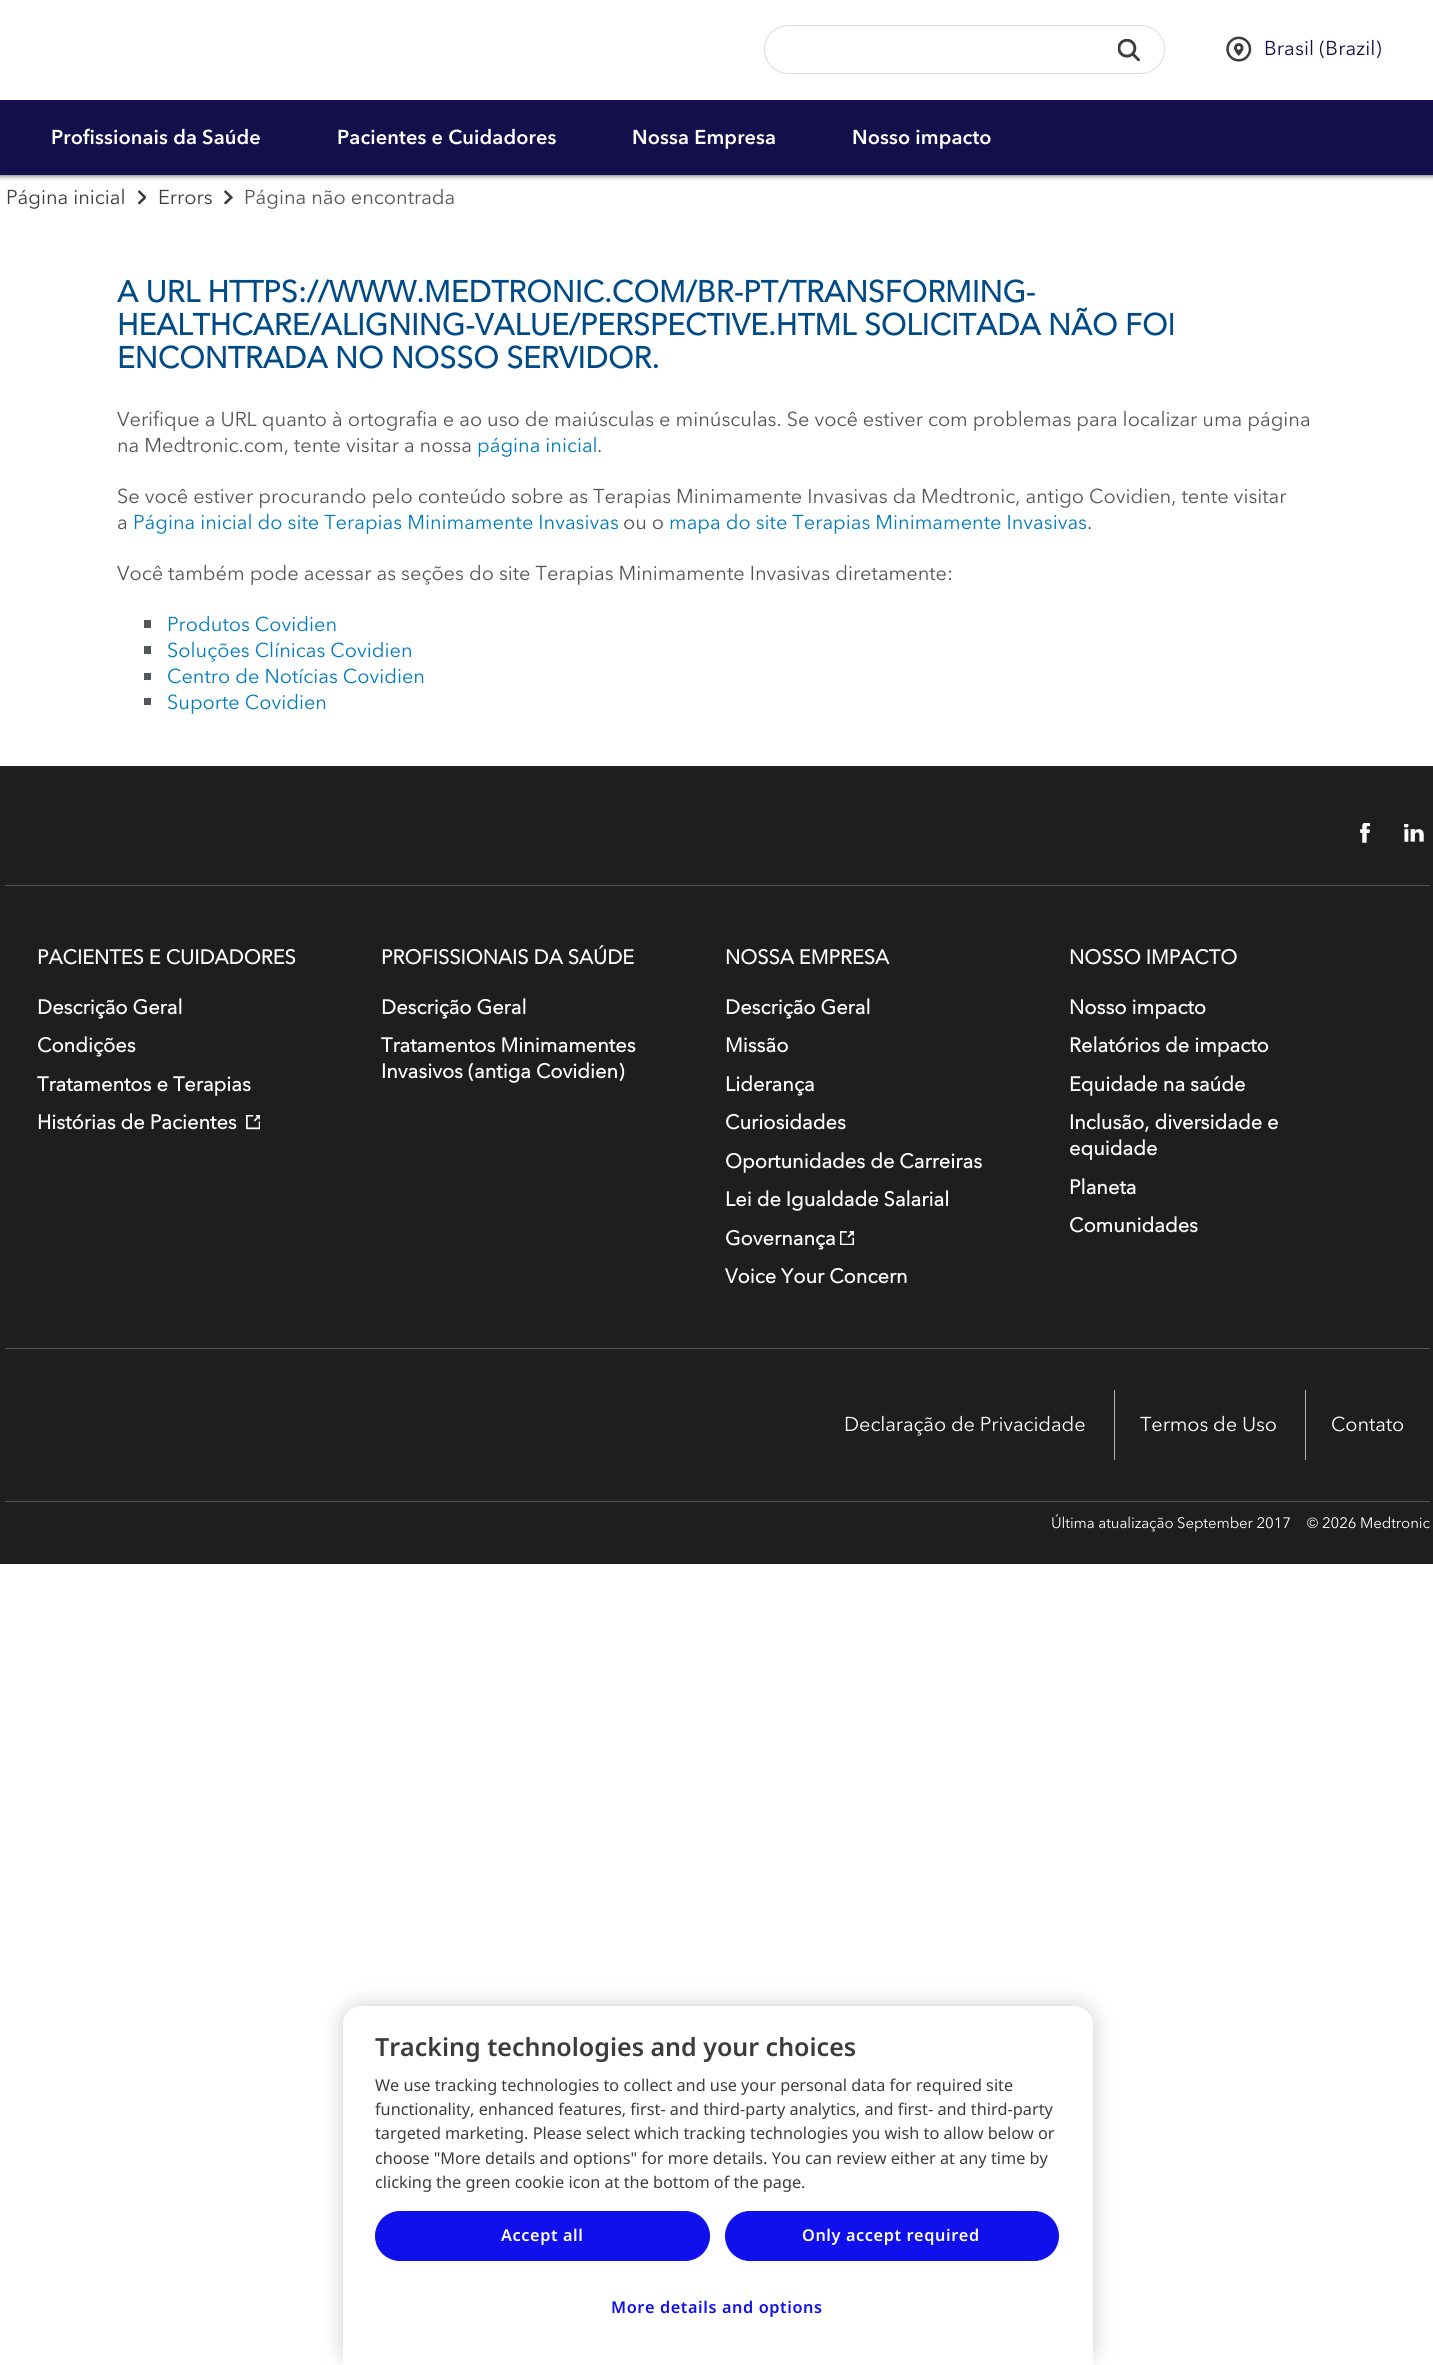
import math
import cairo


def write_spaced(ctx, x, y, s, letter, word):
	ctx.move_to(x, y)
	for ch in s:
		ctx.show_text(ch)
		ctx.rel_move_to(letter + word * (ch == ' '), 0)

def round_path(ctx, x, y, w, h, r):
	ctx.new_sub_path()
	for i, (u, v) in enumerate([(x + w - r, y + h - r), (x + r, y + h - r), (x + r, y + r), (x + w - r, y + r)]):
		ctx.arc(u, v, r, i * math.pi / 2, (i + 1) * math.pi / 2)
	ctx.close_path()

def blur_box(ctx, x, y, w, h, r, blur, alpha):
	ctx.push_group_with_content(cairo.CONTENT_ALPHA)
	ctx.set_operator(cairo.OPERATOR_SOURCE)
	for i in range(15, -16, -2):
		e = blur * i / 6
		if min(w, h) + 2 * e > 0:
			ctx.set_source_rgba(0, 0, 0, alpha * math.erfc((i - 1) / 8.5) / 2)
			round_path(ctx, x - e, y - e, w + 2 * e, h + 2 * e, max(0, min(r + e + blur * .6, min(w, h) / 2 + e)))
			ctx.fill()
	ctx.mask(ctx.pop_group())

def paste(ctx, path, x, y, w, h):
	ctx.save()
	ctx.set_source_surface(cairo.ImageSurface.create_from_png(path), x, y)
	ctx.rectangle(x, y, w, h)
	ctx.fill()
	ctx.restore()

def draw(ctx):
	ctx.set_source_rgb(1, 1, 1)
	ctx.paint()
	ctx.set_source_rgb(0.235, 0.235, 0.235)
	blur_box(ctx, 0, 0, 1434, 175, 0, 3, 1)
	ctx.set_source_rgb(0.078, 0.059, 0.294)
	ctx.rectangle(0, 100, 1433, 75)
	ctx.fill()
	ctx.set_source_rgb(1, 1, 1)
	ctx.rectangle(0, 0, 1433, 100)
	ctx.fill()
	round_path(ctx, 764.5, 25.5, 400, 48, 24)
	ctx.set_source_rgb(0.863, 0.863, 0.863)
	ctx.set_line_width(1)
	ctx.stroke()
	paste(ctx, 'media/1.png', 1118, 39, 22, 22)
	paste(ctx, 'media/2.png', 1226, 36, 26, 26)
	ctx.select_font_face('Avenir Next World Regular')
	ctx.set_font_size(20)
	ctx.set_source_rgb(0.078, 0.059, 0.294)
	write_spaced(ctx, 1264, 55, 'Brasil (Brazil)', 0.1, 0)
	ctx.select_font_face('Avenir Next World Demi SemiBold')
	ctx.set_source_rgb(1, 1, 1)
	for x, y, s in [
		(51, 144, 'Profissionais da Saúde'),
		(337, 144, 'Pacientes e Cuidadores'),
		(632, 144, 'Nossa Empresa'),
		(852, 144, 'Nosso impacto'),
	]:
		write_spaced(ctx, x, y, s, 0.1, 0)
	ctx.select_font_face('Avenir Next World Regular')
	ctx.set_source_rgb(0.235, 0.235, 0.235)
	ctx.move_to(6, 204)
	ctx.show_text('Página inicial')
	paste(ctx, 'media/3.png', 138, 190, 8, 15)
	ctx.move_to(158, 204)
	ctx.show_text('Errors')
	paste(ctx, 'media/4.png', 224, 190, 9, 15)
	ctx.set_source_rgb(0.325, 0.337, 0.353)
	ctx.move_to(244, 204)
	ctx.show_text('Página não encontrada')
	ctx.select_font_face('Avenir Next World Regular', cairo.FONT_SLANT_NORMAL, cairo.FONT_WEIGHT_BOLD)
	ctx.set_font_size(30)
	ctx.set_source_rgb(0, 0.294, 0.529)
	for x, y, s in [
		(117, 302, 'A URL HTTPS://WWW.MEDTRONIC.COM/BR-PT/TRANSFORMING-'),
		(117, 335, 'HEALTHCARE/ALIGNING-VALUE/PERSPECTIVE.HTML SOLICITADA NÃO FOI'),
		(117, 368, 'ENCONTRADA NO NOSSO SERVIDOR.'),
	]:
		ctx.move_to(x, y)
		ctx.show_text(s)
	ctx.select_font_face('Avenir Next World Regular')
	ctx.set_font_size(20)
	ctx.set_source_rgb(0.325, 0.337, 0.353)
	ctx.move_to(117, 426)
	ctx.show_text('Verifique a URL quanto à ortografia e ao uso de maiúsculas e minúsculas. Se você estiver com problemas para localizar uma página')
	ctx.move_to(117, 452)
	ctx.show_text('na Medtronic.com, tente visitar a nossa')
	ctx.set_source_rgb(0, 0.486, 0.741)
	ctx.move_to(477, 452)
	ctx.show_text('página inicial')
	ctx.set_source_rgb(0.325, 0.337, 0.353)
	for x, y, s in [
		(597, 452, '.'),
		(117, 503, 'Se você estiver procurando pelo conteúdo sobre as Terapias Minimamente Invasivas da Medtronic, antigo Covidien, tente visitar'),
		(117, 529, 'a'),
	]:
		ctx.move_to(x, y)
		ctx.show_text(s)
	ctx.set_source_rgb(0, 0.486, 0.741)
	ctx.move_to(133, 529)
	ctx.show_text('Página inicial do site Terapias Minimamente Invasivas')
	ctx.set_source_rgb(0.325, 0.337, 0.353)
	ctx.move_to(623, 529)
	ctx.show_text('ou o')
	ctx.set_source_rgb(0, 0.486, 0.741)
	ctx.move_to(669, 529)
	ctx.show_text('mapa do site Terapias Minimamente Invasivas')
	ctx.set_source_rgb(0.325, 0.337, 0.353)
	ctx.move_to(1087, 529)
	ctx.show_text('.')
	ctx.move_to(117, 580)
	ctx.show_text('Você também pode acessar as seções do site Terapias Minimamente Invasivas diretamente:')
	ctx.rectangle(144, 620, 7, 8)
	ctx.fill()
	ctx.set_source_rgb(0, 0.486, 0.741)
	ctx.move_to(167, 631)
	ctx.show_text('Produtos Covidien')
	ctx.set_source_rgb(0.325, 0.337, 0.353)
	ctx.rectangle(144, 646, 7, 8)
	ctx.fill()
	ctx.set_source_rgb(0, 0.486, 0.741)
	ctx.move_to(167, 657)
	ctx.show_text('Soluções Clínicas Covidien')
	ctx.set_source_rgb(0.325, 0.337, 0.353)
	ctx.rectangle(144, 673, 7, 7)
	ctx.fill()
	ctx.set_source_rgb(0, 0.486, 0.741)
	ctx.move_to(167, 683)
	ctx.show_text('Centro de Notícias Covidien')
	ctx.set_source_rgb(0.325, 0.337, 0.353)
	ctx.rectangle(144, 698, 7, 7)
	ctx.fill()
	ctx.set_source_rgb(0, 0.486, 0.741)
	ctx.move_to(167, 709)
	ctx.show_text('Suporte Covidien')
	ctx.set_source_rgb(0.118, 0.118, 0.118)
	ctx.rectangle(0, 766, 1433, 798)
	ctx.fill()
	ctx.set_source_rgb(0.329, 0.329, 0.329)
	ctx.rectangle(5, 885, 1425, 1)
	ctx.fill()
	paste(ctx, 'media/5.png', 1360, 823, 10, 20)
	paste(ctx, 'media/6.png', 1404, 824, 20, 18)
	ctx.select_font_face('Avenir Next World Regular', cairo.FONT_SLANT_NORMAL, cairo.FONT_WEIGHT_BOLD)
	ctx.set_source_rgb(1, 1, 1)
	for x, y, s in [
		(37, 964, 'PACIENTES E CUIDADORES'),
		(37, 1014, 'Descrição Geral'),
		(37, 1052, 'Condições'),
		(37, 1091, 'Tratamentos e Terapias'),
		(37, 1129, 'Histórias de Pacientes'),
	]:
		ctx.move_to(x, y)
		ctx.show_text(s)
	paste(ctx, 'media/7.png', 246, 1115, 14, 15)
	for x, y, s in [
		(381, 964, 'PROFISSIONAIS DA SAÚDE'),
		(381, 1014, 'Descrição Geral'),
		(381, 1052, 'Tratamentos Minimamentes'),
		(381, 1078, 'Invasivos (antiga Covidien)'),
		(725, 964, 'NOSSA EMPRESA'),
		(725, 1014, 'Descrição Geral'),
		(725, 1052, 'Missão'),
		(725, 1091, 'Liderança'),
		(725, 1129, 'Curiosidades'),
		(725, 1168, 'Oportunidades de Carreiras'),
		(725, 1206, 'Lei de Igualdade Salarial'),
		(725, 1245, 'Governança'),
	]:
		ctx.move_to(x, y)
		ctx.show_text(s)
	paste(ctx, 'media/8.png', 840, 1231, 14, 14)
	for x, y, s in [
		(725, 1283, 'Voice Your Concern'),
		(1069, 964, 'NOSSO IMPACTO'),
		(1069, 1014, 'Nosso impacto'),
		(1069, 1052, 'Relatórios de impacto'),
		(1069, 1091, 'Equidade na saúde'),
		(1069, 1129, 'Inclusão, diversidade e'),
		(1069, 1155, 'equidade'),
		(1069, 1194, 'Planeta'),
		(1069, 1232, 'Comunidades'),
	]:
		ctx.move_to(x, y)
		ctx.show_text(s)
	ctx.set_source_rgb(0.329, 0.329, 0.329)
	ctx.rectangle(5, 1348, 1425, 1)
	ctx.fill()
	ctx.rectangle(5, 1501, 1425, 1)
	ctx.fill()
	ctx.select_font_face('Avenir Next World Regular')
	ctx.set_source_rgb(1, 1, 1)
	write_spaced(ctx, 844, 1431, 'Declaração de Privacidade', -0.1, 0)
	ctx.set_source_rgb(0.694, 0.694, 0.702)
	ctx.rectangle(1114, 1390, 1, 70)
	ctx.fill()
	ctx.set_source_rgb(1, 1, 1)
	write_spaced(ctx, 1140, 1431, 'Termos de Uso', -0.1, 0)
	ctx.set_source_rgb(0.694, 0.694, 0.702)
	ctx.rectangle(1305, 1390, 1, 70)
	ctx.fill()
	ctx.set_source_rgb(1, 1, 1)
	write_spaced(ctx, 1331, 1431, 'Contato', -0.1, 0)
	ctx.set_font_size(15)
	write_spaced(ctx, 1051, 1528, 'Última atualização September 2017', -0.1, 0)
	ctx.select_font_face('Liberation Sans')
	write_spaced(ctx, 1307, 1528, '©', -0.1, 0)
	ctx.select_font_face('Avenir Next World Regular')
	write_spaced(ctx, 1322, 1528, '2026 Medtronic', -0.1, 0)
	ctx.set_source_rgb(0, 0, 0)
	blur_box(ctx, 343, 2006, 750, 359, 19, 11, 0.2)
	ctx.set_source_rgb(1, 1, 1)
	ctx.new_path()
	ctx.move_to(362, 2006)
	ctx.line_to(1074, 2006)
	ctx.curve_to(1084.5, 2006, 1093, 2014.5, 1093, 2025)
	ctx.line_to(1093, 2365)
	ctx.line_to(343, 2365)
	ctx.line_to(343, 2025)
	ctx.curve_to(343, 2014.5, 351.5, 2006, 362, 2006)
	ctx.close_path()
	ctx.fill()
	ctx.select_font_face('Noto Sans SemiBold')
	ctx.set_font_size(25)
	ctx.set_source_rgb(0.235, 0.235, 0.235)
	ctx.move_to(375, 2056)
	ctx.show_text('Tracking technologies and your choices')
	ctx.select_font_face('Noto Sans')
	ctx.set_font_size(16.25)
	for x, y, s in [
		(375, 2091, 'We use tracking technologies to collect and use your personal data for required site'),
		(375, 2115, 'functionality, enhanced features, first- and third-party analytics, and first- and third-party'),
		(375, 2139, 'targeted marketing. Please select which tracking technologies you wish to allow below or'),
		(375, 2164, 'choose "More details and options" for more details. You can review either at any time by'),
		(375, 2188, 'clicking the green cookie icon at the bottom of the page.'),
	]:
		ctx.move_to(x, y)
		ctx.show_text(s)
	ctx.set_source_rgb(0.063, 0.063, 0.922)
	round_path(ctx, 375.5, 2211.5, 334, 49, 24.5)
	ctx.fill_preserve()
	ctx.stroke()
	ctx.select_font_face('Noto Sans SemiBold')
	ctx.set_source_rgb(1, 1, 1)
	write_spaced(ctx, 501, 2241, 'Accept all', 0.6, 0)
	ctx.set_source_rgb(0.063, 0.063, 0.922)
	round_path(ctx, 725.5, 2211.5, 333, 49, 24.5)
	ctx.fill_preserve()
	ctx.stroke()
	ctx.set_source_rgb(1, 1, 1)
	write_spaced(ctx, 802, 2241, 'Only accept required', 0.6, 0)
	ctx.set_source_rgb(0.063, 0.063, 0.922)
	write_spaced(ctx, 611, 2313, 'More details and options', 0.6, 0)


surface = cairo.ImageSurface(cairo.FORMAT_RGB24, 1433, 2365)
ctx = cairo.Context(surface)
options = cairo.FontOptions()
options.set_hint_metrics(cairo.HINT_METRICS_OFF)
options.set_hint_style(cairo.HINT_STYLE_NONE)
ctx.set_font_options(options)
ctx.set_miter_limit(4)
draw(ctx)
surface.write_to_png('image.png')
